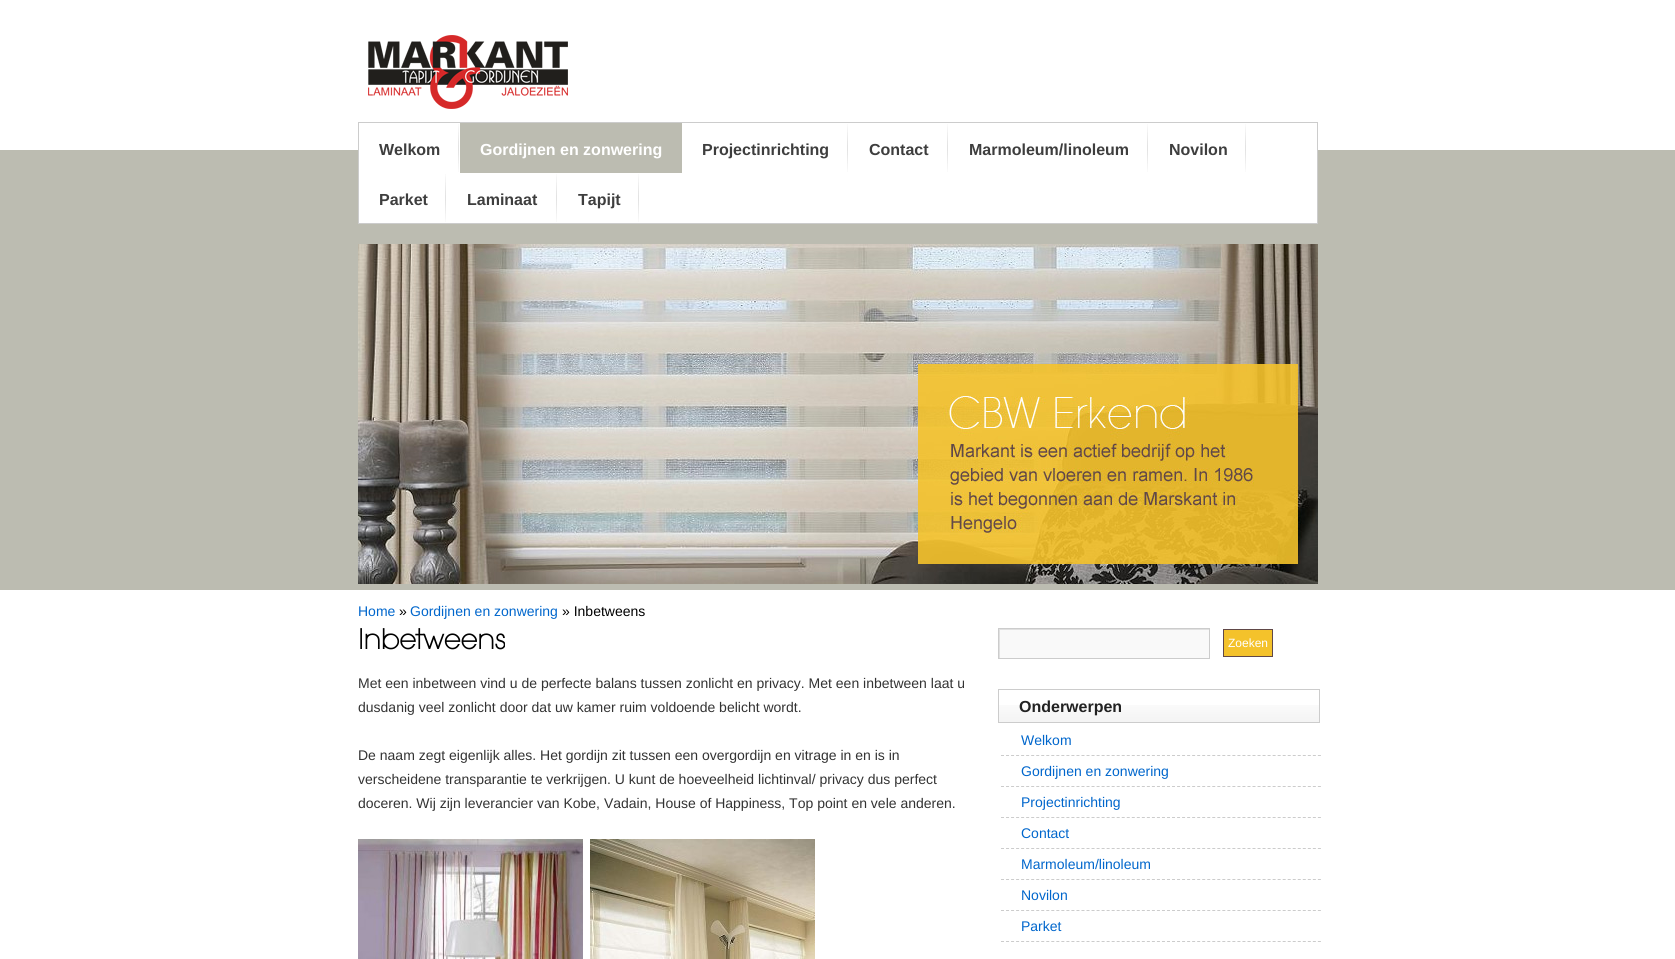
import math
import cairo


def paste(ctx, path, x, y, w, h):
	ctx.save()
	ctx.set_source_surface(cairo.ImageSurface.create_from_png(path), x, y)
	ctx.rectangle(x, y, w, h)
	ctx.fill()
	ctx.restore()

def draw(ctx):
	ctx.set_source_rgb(1, 1, 1)
	ctx.paint()
	paste(ctx, 'media/1.png', 368, 35, 200, 74)
	ctx.set_source_rgb(0.737, 0.737, 0.694)
	ctx.rectangle(0, 150, 1675, 440)
	ctx.fill()
	ctx.set_source_rgb(1, 1, 1)
	ctx.rectangle(359, 150, 958, 73)
	ctx.fill()
	ctx.rectangle(358.5, 122.5, 959, 101)
	ctx.set_source_rgb(0.8, 0.8, 0.8)
	ctx.set_line_width(1)
	ctx.stroke()
	paste(ctx, 'media/2.png', 458, 124, 1, 48)
	ctx.select_font_face('Liberation Sans', cairo.FONT_SLANT_NORMAL, cairo.FONT_WEIGHT_BOLD)
	ctx.set_font_size(16)
	ctx.set_source_rgb(0.243, 0.243, 0.243)
	ctx.move_to(379, 155)
	ctx.show_text('Welkom')
	ctx.set_source_rgb(0.737, 0.737, 0.694)
	ctx.rectangle(460, 123, 222, 50)
	ctx.fill()
	ctx.set_source_rgb(1, 1, 1)
	ctx.move_to(480, 155)
	ctx.show_text('Gordijnen en zonwering')
	paste(ctx, 'media/2.png', 847, 124, 1, 48)
	ctx.set_source_rgb(0.243, 0.243, 0.243)
	ctx.move_to(702, 155)
	ctx.show_text('Projectinrichting')
	paste(ctx, 'media/2.png', 947, 124, 1, 48)
	ctx.move_to(869, 155)
	ctx.show_text('Contact')
	paste(ctx, 'media/2.png', 1147, 124, 1, 48)
	ctx.move_to(969, 155)
	ctx.show_text('Marmoleum/linoleum')
	paste(ctx, 'media/2.png', 1245, 124, 1, 48)
	ctx.move_to(1169, 155)
	ctx.show_text('Novilon')
	paste(ctx, 'media/2.png', 445, 174, 1, 48)
	ctx.move_to(379, 205)
	ctx.show_text('Parket')
	paste(ctx, 'media/2.png', 556, 174, 1, 48)
	ctx.move_to(467, 205)
	ctx.show_text('Laminaat')
	paste(ctx, 'media/2.png', 638, 174, 1, 48)
	ctx.move_to(578, 205)
	ctx.show_text('Tapijt')
	paste(ctx, 'media/3.png', 358, 244, 960, 340)
	ctx.select_font_face('Liberation Sans')
	ctx.set_font_size(14)
	ctx.set_source_rgb(0, 0.4, 0.8)
	ctx.move_to(358, 616)
	ctx.show_text('Home')
	ctx.set_source_rgb(0, 0, 0)
	ctx.move_to(399, 616)
	ctx.show_text('»')
	ctx.set_source_rgb(0, 0.4, 0.8)
	ctx.move_to(410, 616)
	ctx.show_text('Gordijnen en zonwering')
	ctx.set_source_rgb(0, 0, 0)
	ctx.move_to(562, 616)
	ctx.show_text('» Inbetweens')
	ctx.select_font_face('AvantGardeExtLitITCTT', cairo.FONT_SLANT_NORMAL, cairo.FONT_WEIGHT_BOLD)
	ctx.set_font_size(30)
	ctx.move_to(358, 649)
	ctx.show_text('Inbetweens')
	ctx.select_font_face('Liberation Sans')
	ctx.set_font_size(14)
	ctx.set_source_rgb(0.2, 0.2, 0.2)
	for x, y, s in [
		(358, 688, 'Met een inbetween vind u de perfecte balans tussen zonlicht en privacy. Met een inbetween laat u'),
		(358, 712, 'dusdanig veel zonlicht door dat uw kamer ruim voldoende belicht wordt.'),
		(358, 760, 'De naam zegt eigenlijk alles. Het gordijn zit tussen een overgordijn en vitrage in en is in'),
		(358, 784, 'verscheidene transparantie te verkrijgen. U kunt de hoeveelheid lichtinval/ privacy dus perfect'),
		(358, 808, 'doceren. Wij zijn leverancier van Kobe, Vadain, House of Happiness, Top point en vele anderen.'),
	]:
		ctx.move_to(x, y)
		ctx.show_text(s)
	paste(ctx, 'media/4.png', 358, 839, 225, 120)
	paste(ctx, 'media/5.png', 590, 839, 225, 120)
	ctx.set_source_rgb(0.976, 0.976, 0.976)
	ctx.rectangle(1000, 630, 209, 28)
	ctx.fill()
	ctx.save()
	ctx.rectangle(999, 629, 210, 29)
	ctx.clip()
	ctx.set_source_rgb(0.878, 0.878, 0.878)
	ctx.set_fill_rule(cairo.FILL_RULE_EVEN_ODD)
	ctx.new_path()
	ctx.move_to(900, 530)
	ctx.line_to(1308, 530)
	ctx.line_to(1308, 757)
	ctx.line_to(900, 757)
	ctx.close_path()
	ctx.move_to(1000, 630)
	ctx.line_to(1210, 630)
	ctx.line_to(1210, 659)
	ctx.line_to(1000, 659)
	ctx.close_path()
	ctx.fill()
	ctx.restore()
	ctx.rectangle(998.5, 628.5, 211, 30)
	ctx.set_source_rgb(0.8, 0.8, 0.8)
	ctx.stroke()
	ctx.set_source_rgb(0.957, 0.761, 0.169)
	ctx.rectangle(1223.5, 629.5, 49, 27)
	ctx.fill_preserve()
	ctx.set_source_rgb(0.376, 0.282, 0.282)
	ctx.stroke()
	ctx.set_font_size(12)
	ctx.set_source_rgb(1, 1, 1)
	ctx.move_to(1228, 647)
	ctx.show_text('Zoeken')
	paste(ctx, 'media/6.png', 999, 705, 320, 17)
	ctx.rectangle(998.5, 689.5, 321, 33)
	ctx.set_source_rgb(0.8, 0.8, 0.8)
	ctx.stroke()
	ctx.select_font_face('Liberation Sans', cairo.FONT_SLANT_NORMAL, cairo.FONT_WEIGHT_BOLD)
	ctx.set_font_size(16)
	ctx.set_source_rgb(0.133, 0.133, 0.133)
	ctx.move_to(1019, 712)
	ctx.show_text('Onderwerpen')
	ctx.new_path()
	ctx.move_to(1001, 755.5)
	ctx.line_to(1321, 755.5)
	ctx.set_source_rgb(0.8, 0.8, 0.8)
	ctx.set_dash([3, 2.03])
	ctx.stroke()
	ctx.select_font_face('Liberation Sans')
	ctx.set_font_size(14)
	ctx.set_source_rgb(0, 0.4, 0.8)
	ctx.move_to(1021, 745)
	ctx.show_text('Welkom')
	ctx.new_path()
	ctx.move_to(1001, 786.5)
	ctx.line_to(1321, 786.5)
	ctx.set_source_rgb(0.8, 0.8, 0.8)
	ctx.stroke()
	ctx.set_source_rgb(0, 0.4, 0.8)
	ctx.move_to(1021, 776)
	ctx.show_text('Gordijnen en zonwering')
	ctx.new_path()
	ctx.move_to(1001, 817.5)
	ctx.line_to(1321, 817.5)
	ctx.set_source_rgb(0.8, 0.8, 0.8)
	ctx.stroke()
	ctx.set_source_rgb(0, 0.4, 0.8)
	ctx.move_to(1021, 807)
	ctx.show_text('Projectinrichting')
	ctx.new_path()
	ctx.move_to(1001, 848.5)
	ctx.line_to(1321, 848.5)
	ctx.set_source_rgb(0.8, 0.8, 0.8)
	ctx.stroke()
	ctx.set_source_rgb(0, 0.4, 0.8)
	ctx.move_to(1021, 838)
	ctx.show_text('Contact')
	ctx.new_path()
	ctx.move_to(1001, 879.5)
	ctx.line_to(1321, 879.5)
	ctx.set_source_rgb(0.8, 0.8, 0.8)
	ctx.stroke()
	ctx.set_source_rgb(0, 0.4, 0.8)
	ctx.move_to(1021, 869)
	ctx.show_text('Marmoleum/linoleum')
	ctx.new_path()
	ctx.move_to(1001, 910.5)
	ctx.line_to(1321, 910.5)
	ctx.set_source_rgb(0.8, 0.8, 0.8)
	ctx.stroke()
	ctx.set_source_rgb(0, 0.4, 0.8)
	ctx.move_to(1021, 900)
	ctx.show_text('Novilon')
	ctx.new_path()
	ctx.move_to(1001, 941.5)
	ctx.line_to(1321, 941.5)
	ctx.set_source_rgb(0.8, 0.8, 0.8)
	ctx.stroke()
	ctx.set_source_rgb(0, 0.4, 0.8)
	ctx.move_to(1021, 931)
	ctx.show_text('Parket')


surface = cairo.ImageSurface(cairo.FORMAT_RGB24, 1675, 959)
ctx = cairo.Context(surface)
options = cairo.FontOptions()
options.set_hint_metrics(cairo.HINT_METRICS_OFF)
options.set_hint_style(cairo.HINT_STYLE_NONE)
ctx.set_font_options(options)
ctx.set_miter_limit(4)
draw(ctx)
surface.write_to_png('image.png')
